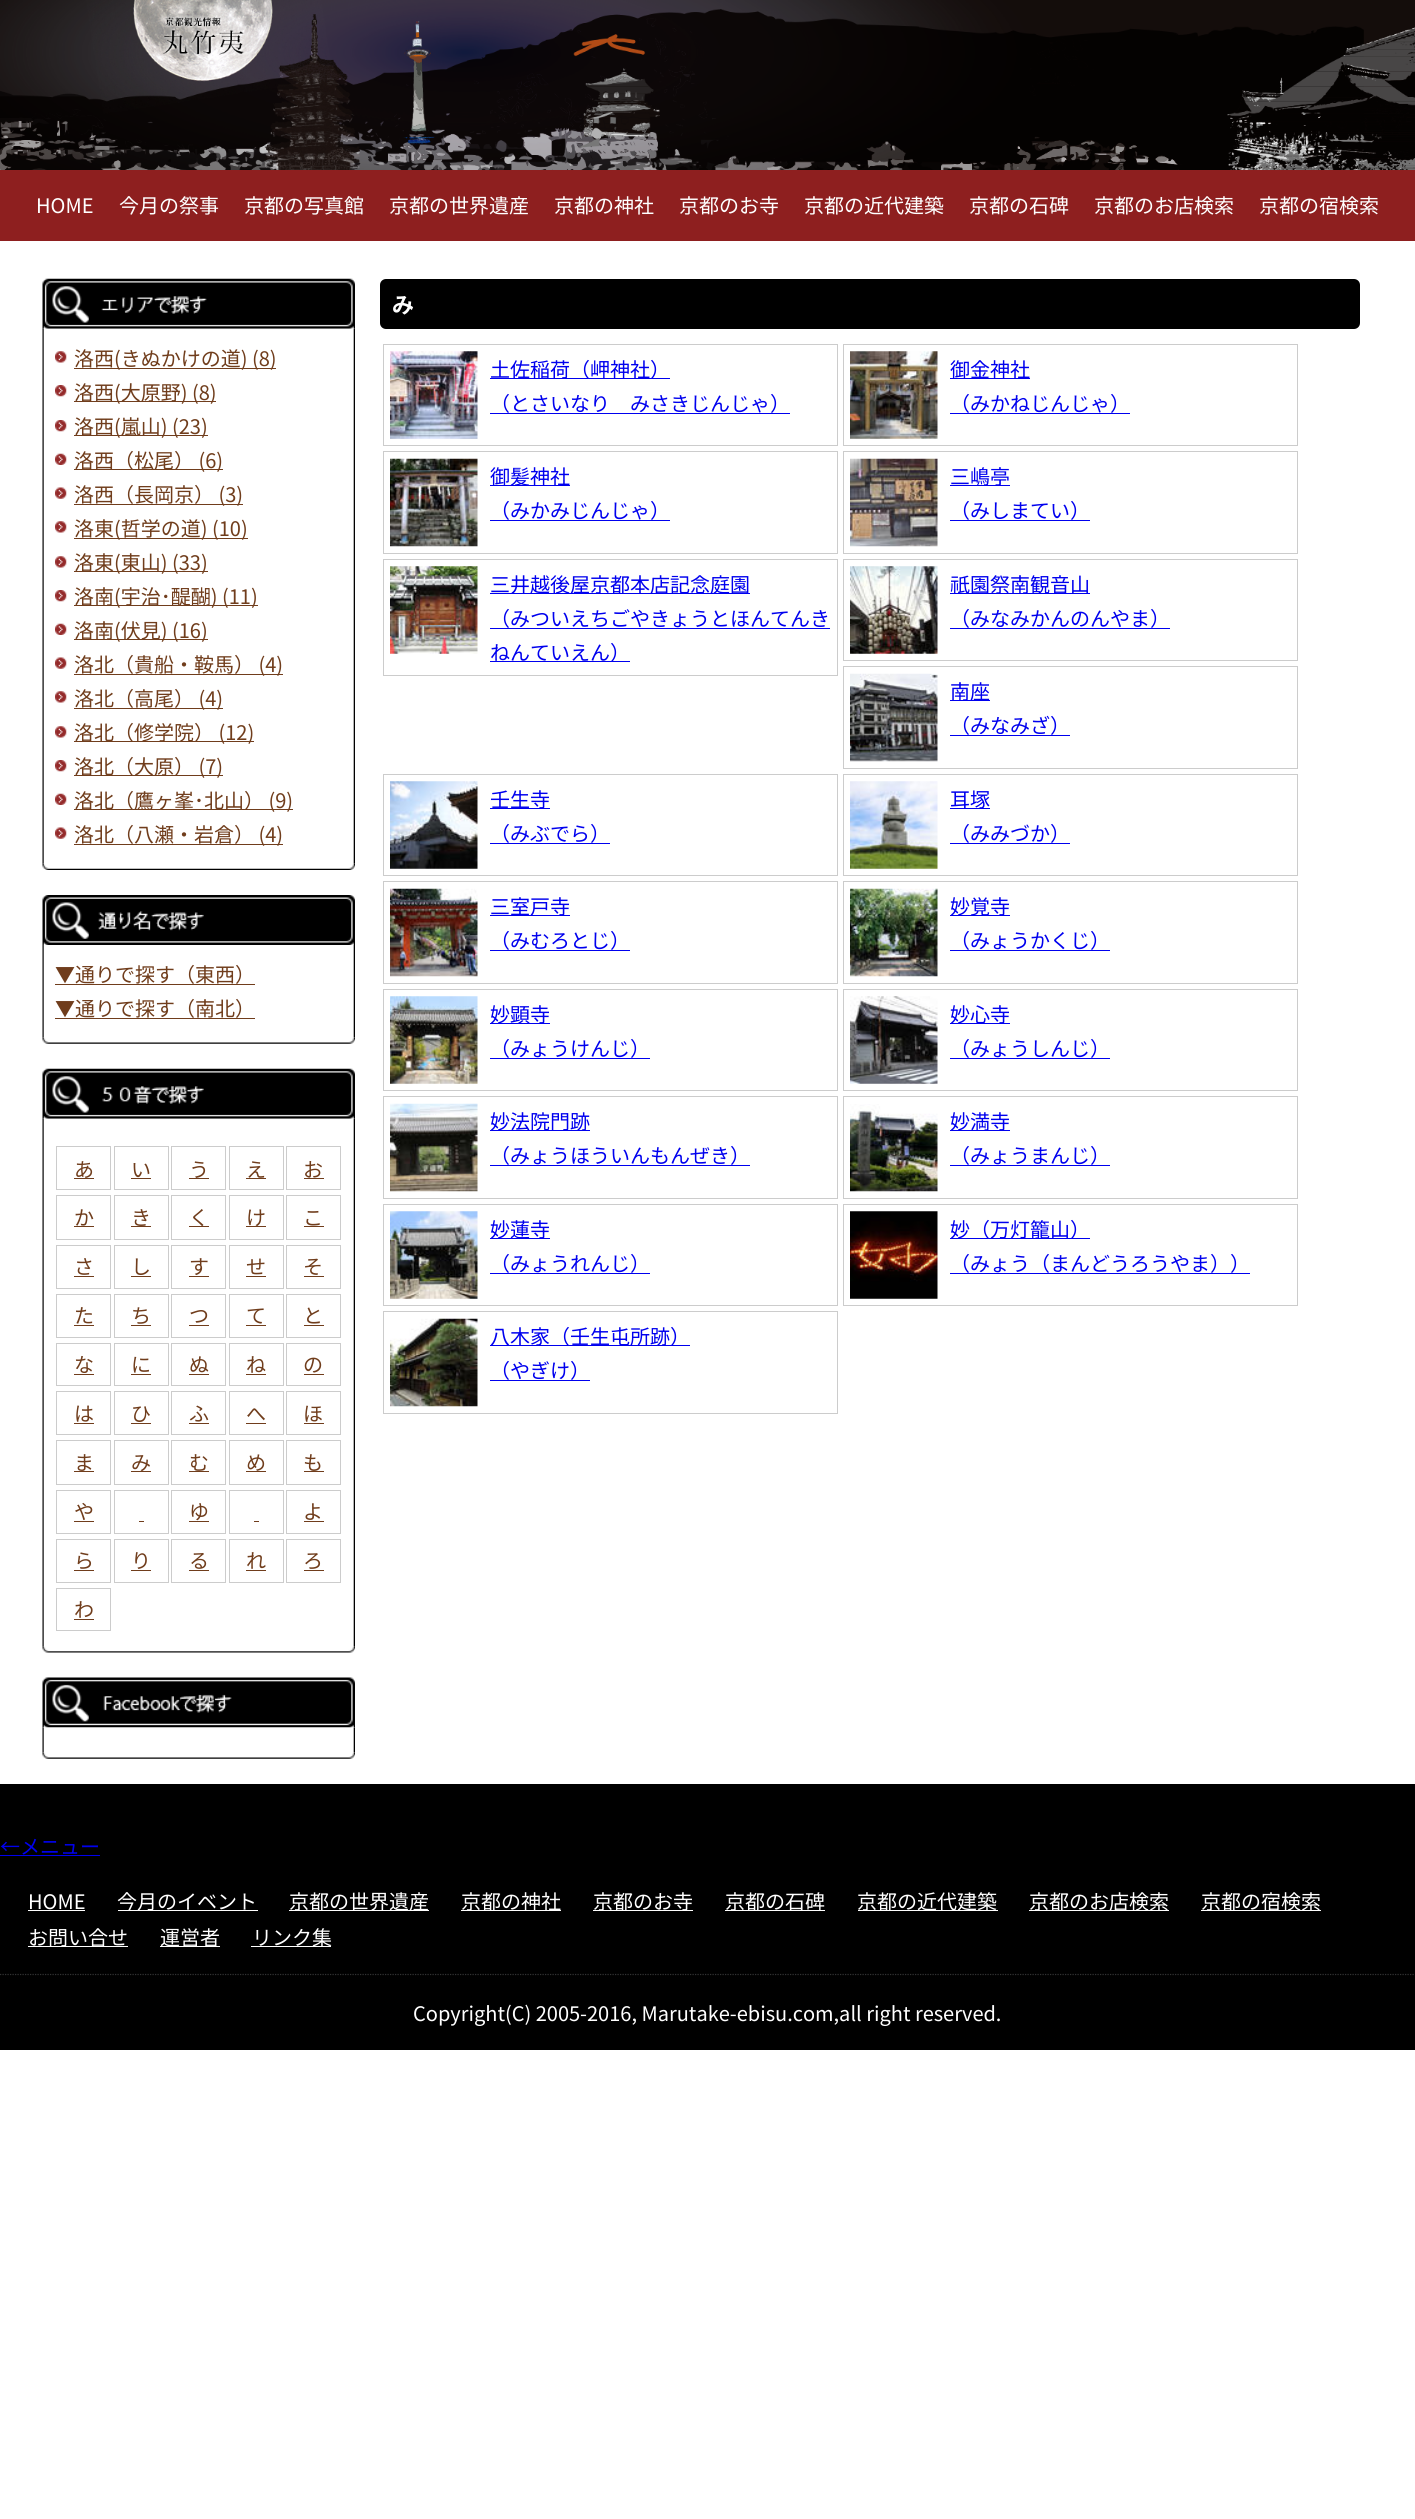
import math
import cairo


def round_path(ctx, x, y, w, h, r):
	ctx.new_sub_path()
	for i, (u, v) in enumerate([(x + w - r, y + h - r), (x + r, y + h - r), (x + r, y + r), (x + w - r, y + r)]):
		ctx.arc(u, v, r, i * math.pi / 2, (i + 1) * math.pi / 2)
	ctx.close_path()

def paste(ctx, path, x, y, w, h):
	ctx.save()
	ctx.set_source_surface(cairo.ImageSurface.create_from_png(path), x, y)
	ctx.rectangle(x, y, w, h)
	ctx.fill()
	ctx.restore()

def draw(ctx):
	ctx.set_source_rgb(1, 1, 1)
	ctx.paint()
	paste(ctx, 'media/1.png', 0, 0, 1415, 170)
	ctx.set_source_rgb(0.557, 0.122, 0.122)
	ctx.rectangle(0, 170, 1415, 71)
	ctx.fill()
	ctx.select_font_face('Noto Sans JP')
	ctx.set_font_size(20)
	ctx.set_source_rgb(1, 1, 1)
	for x, y, s in [
		(36, 213, 'HOME'),
		(119, 213, '今月の祭事'),
		(244, 213, '京都の写真館'),
		(389, 213, '京都の世界遺産'),
		(554, 213, '京都の神社'),
		(679, 213, '京都のお寺'),
		(804, 213, '京都の近代建築'),
		(969, 213, '京都の石碑'),
		(1094, 213, '京都のお店検索'),
		(1259, 213, '京都の宿検索'),
	]:
		ctx.move_to(x, y)
		ctx.show_text(s)
	paste(ctx, 'media/2.png', 42, 278, 313, 51)
	paste(ctx, 'media/3.png', 42, 328, 313, 536)
	paste(ctx, 'media/4.png', 55, 351, 12, 12)
	ctx.set_source_rgb(0.439, 0.239, 0.11)
	ctx.rectangle(74, 368, 202, 1)
	ctx.fill()
	ctx.move_to(74, 366)
	ctx.show_text('洛西(きぬかけの道) (8)')
	paste(ctx, 'media/5.png', 55, 385, 12, 12)
	ctx.rectangle(74, 401, 142, 1)
	ctx.fill()
	ctx.move_to(74, 400)
	ctx.show_text('洛西(大原野) (8)')
	paste(ctx, 'media/5.png', 55, 420, 12, 12)
	ctx.rectangle(74, 435, 134, 1)
	ctx.fill()
	ctx.move_to(74, 434)
	ctx.show_text('洛西(嵐山) (23)')
	paste(ctx, 'media/6.png', 55, 453, 12, 12)
	ctx.rectangle(74, 469, 149, 1)
	ctx.fill()
	ctx.move_to(74, 468)
	ctx.show_text('洛西（松尾） (6)')
	paste(ctx, 'media/7.png', 55, 487, 12, 12)
	ctx.rectangle(74, 504, 169, 1)
	ctx.fill()
	ctx.move_to(74, 502)
	ctx.show_text('洛西（長岡京） (3)')
	paste(ctx, 'media/4.png', 55, 521, 12, 12)
	ctx.rectangle(74, 538, 174, 1)
	ctx.fill()
	ctx.move_to(74, 536)
	ctx.show_text('洛東(哲学の道) (10)')
	paste(ctx, 'media/4.png', 55, 556, 12, 12)
	ctx.rectangle(74, 571, 134, 1)
	ctx.fill()
	ctx.move_to(74, 570)
	ctx.show_text('洛東(東山) (33)')
	paste(ctx, 'media/5.png', 55, 590, 12, 12)
	ctx.rectangle(74, 605, 184, 1)
	ctx.fill()
	ctx.move_to(74, 604)
	ctx.show_text('洛南(宇治･醍醐) (11)')
	paste(ctx, 'media/6.png', 55, 623, 12, 12)
	ctx.rectangle(74, 639, 134, 1)
	ctx.fill()
	ctx.move_to(74, 638)
	ctx.show_text('洛南(伏見) (16)')
	paste(ctx, 'media/7.png', 55, 657, 12, 12)
	ctx.rectangle(74, 674, 209, 1)
	ctx.fill()
	ctx.move_to(74, 672)
	ctx.show_text('洛北（貴船・鞍馬） (4)')
	paste(ctx, 'media/4.png', 55, 691, 12, 12)
	ctx.rectangle(74, 708, 149, 1)
	ctx.fill()
	ctx.move_to(74, 706)
	ctx.show_text('洛北（高尾） (4)')
	paste(ctx, 'media/4.png', 55, 726, 12, 12)
	ctx.rectangle(74, 741, 180, 1)
	ctx.fill()
	ctx.move_to(74, 740)
	ctx.show_text('洛北（修学院） (12)')
	paste(ctx, 'media/5.png', 55, 760, 12, 12)
	ctx.rectangle(74, 775, 149, 1)
	ctx.fill()
	ctx.move_to(74, 774)
	ctx.show_text('洛北（大原） (7)')
	paste(ctx, 'media/6.png', 55, 793, 12, 12)
	ctx.rectangle(74, 809, 219, 1)
	ctx.fill()
	ctx.move_to(74, 808)
	ctx.show_text('洛北（鷹ヶ峯･北山） (9)')
	paste(ctx, 'media/7.png', 55, 827, 12, 12)
	ctx.rectangle(74, 844, 209, 1)
	ctx.fill()
	ctx.move_to(74, 842)
	ctx.show_text('洛北（八瀬・岩倉） (4)')
	paste(ctx, 'media/8.png', 42, 863, 313, 7)
	paste(ctx, 'media/9.png', 42, 895, 313, 50)
	paste(ctx, 'media/10.png', 42, 945, 313, 93)
	ctx.move_to(55, 982)
	ctx.show_text('▼通りで探す（東西）')
	ctx.rectangle(55, 984, 200, 1)
	ctx.fill()
	ctx.move_to(55, 1016)
	ctx.show_text('▼通りで探す（南北）')
	ctx.rectangle(55, 1018, 200, 1)
	ctx.fill()
	paste(ctx, 'media/11.png', 42, 1037, 313, 7)
	paste(ctx, 'media/12.png', 42, 1068, 313, 51)
	paste(ctx, 'media/13.png', 42, 1118, 313, 529)
	ctx.rectangle(56.5, 1146.5, 54, 43)
	ctx.set_source_rgb(0.8, 0.8, 0.8)
	ctx.set_line_width(1)
	ctx.stroke()
	ctx.set_source_rgb(0.439, 0.239, 0.11)
	ctx.move_to(74, 1177)
	ctx.show_text('あ')
	ctx.rectangle(74, 1178, 20, 1)
	ctx.fill()
	ctx.rectangle(114.5, 1146.5, 54, 43)
	ctx.set_source_rgb(0.8, 0.8, 0.8)
	ctx.stroke()
	ctx.set_source_rgb(0.439, 0.239, 0.11)
	ctx.move_to(131, 1177)
	ctx.show_text('い')
	ctx.rectangle(131, 1178, 20, 1)
	ctx.fill()
	ctx.rectangle(171.5, 1146.5, 54, 43)
	ctx.set_source_rgb(0.8, 0.8, 0.8)
	ctx.stroke()
	ctx.set_source_rgb(0.439, 0.239, 0.11)
	ctx.move_to(189, 1177)
	ctx.show_text('う')
	ctx.rectangle(189, 1178, 20, 1)
	ctx.fill()
	ctx.rectangle(229.5, 1146.5, 54, 43)
	ctx.set_source_rgb(0.8, 0.8, 0.8)
	ctx.stroke()
	ctx.set_source_rgb(0.439, 0.239, 0.11)
	ctx.move_to(246, 1177)
	ctx.show_text('え')
	ctx.rectangle(246, 1178, 20, 1)
	ctx.fill()
	ctx.rectangle(286.5, 1146.5, 54, 43)
	ctx.set_source_rgb(0.8, 0.8, 0.8)
	ctx.stroke()
	ctx.set_source_rgb(0.439, 0.239, 0.11)
	ctx.move_to(303, 1177)
	ctx.show_text('お')
	ctx.rectangle(304, 1178, 20, 1)
	ctx.fill()
	ctx.rectangle(56.5, 1195.5, 54, 44)
	ctx.set_source_rgb(0.8, 0.8, 0.8)
	ctx.stroke()
	ctx.set_source_rgb(0.439, 0.239, 0.11)
	ctx.move_to(74, 1225)
	ctx.show_text('か')
	ctx.rectangle(74, 1226, 20, 1)
	ctx.fill()
	ctx.rectangle(114.5, 1195.5, 54, 44)
	ctx.set_source_rgb(0.8, 0.8, 0.8)
	ctx.stroke()
	ctx.set_source_rgb(0.439, 0.239, 0.11)
	ctx.move_to(131, 1225)
	ctx.show_text('き')
	ctx.rectangle(131, 1226, 20, 1)
	ctx.fill()
	ctx.rectangle(171.5, 1195.5, 54, 44)
	ctx.set_source_rgb(0.8, 0.8, 0.8)
	ctx.stroke()
	ctx.set_source_rgb(0.439, 0.239, 0.11)
	ctx.rectangle(189, 1226, 20, 1)
	ctx.fill()
	ctx.move_to(189, 1225)
	ctx.show_text('く')
	ctx.rectangle(229.5, 1195.5, 54, 44)
	ctx.set_source_rgb(0.8, 0.8, 0.8)
	ctx.stroke()
	ctx.set_source_rgb(0.439, 0.239, 0.11)
	ctx.rectangle(246, 1226, 20, 1)
	ctx.fill()
	ctx.move_to(246, 1225)
	ctx.show_text('け')
	ctx.rectangle(286.5, 1195.5, 54, 44)
	ctx.set_source_rgb(0.8, 0.8, 0.8)
	ctx.stroke()
	ctx.set_source_rgb(0.439, 0.239, 0.11)
	ctx.move_to(303, 1225)
	ctx.show_text('こ')
	ctx.rectangle(304, 1226, 20, 1)
	ctx.fill()
	ctx.rectangle(56.5, 1245.5, 54, 43)
	ctx.set_source_rgb(0.8, 0.8, 0.8)
	ctx.stroke()
	ctx.set_source_rgb(0.439, 0.239, 0.11)
	ctx.move_to(74, 1274)
	ctx.show_text('さ')
	ctx.rectangle(74, 1276, 20, 1)
	ctx.fill()
	ctx.rectangle(114.5, 1245.5, 54, 43)
	ctx.set_source_rgb(0.8, 0.8, 0.8)
	ctx.stroke()
	ctx.set_source_rgb(0.439, 0.239, 0.11)
	ctx.move_to(131, 1274)
	ctx.show_text('し')
	ctx.rectangle(131, 1276, 20, 1)
	ctx.fill()
	ctx.rectangle(171.5, 1245.5, 54, 43)
	ctx.set_source_rgb(0.8, 0.8, 0.8)
	ctx.stroke()
	ctx.set_source_rgb(0.439, 0.239, 0.11)
	ctx.move_to(189, 1274)
	ctx.show_text('す')
	ctx.rectangle(189, 1276, 20, 1)
	ctx.fill()
	ctx.rectangle(229.5, 1245.5, 54, 43)
	ctx.set_source_rgb(0.8, 0.8, 0.8)
	ctx.stroke()
	ctx.set_source_rgb(0.439, 0.239, 0.11)
	ctx.move_to(246, 1274)
	ctx.show_text('せ')
	ctx.rectangle(246, 1276, 20, 1)
	ctx.fill()
	ctx.rectangle(286.5, 1245.5, 54, 43)
	ctx.set_source_rgb(0.8, 0.8, 0.8)
	ctx.stroke()
	ctx.set_source_rgb(0.439, 0.239, 0.11)
	ctx.move_to(303, 1274)
	ctx.show_text('そ')
	ctx.rectangle(304, 1276, 20, 1)
	ctx.fill()
	ctx.rectangle(56.5, 1294.5, 54, 43)
	ctx.set_source_rgb(0.8, 0.8, 0.8)
	ctx.stroke()
	ctx.set_source_rgb(0.439, 0.239, 0.11)
	ctx.move_to(74, 1323)
	ctx.show_text('た')
	ctx.rectangle(74, 1325, 20, 1)
	ctx.fill()
	ctx.rectangle(114.5, 1294.5, 54, 43)
	ctx.set_source_rgb(0.8, 0.8, 0.8)
	ctx.stroke()
	ctx.set_source_rgb(0.439, 0.239, 0.11)
	ctx.move_to(131, 1323)
	ctx.show_text('ち')
	ctx.rectangle(131, 1325, 20, 1)
	ctx.fill()
	ctx.rectangle(171.5, 1294.5, 54, 43)
	ctx.set_source_rgb(0.8, 0.8, 0.8)
	ctx.stroke()
	ctx.set_source_rgb(0.439, 0.239, 0.11)
	ctx.move_to(189, 1323)
	ctx.show_text('つ')
	ctx.rectangle(189, 1325, 20, 1)
	ctx.fill()
	ctx.rectangle(229.5, 1294.5, 54, 43)
	ctx.set_source_rgb(0.8, 0.8, 0.8)
	ctx.stroke()
	ctx.set_source_rgb(0.439, 0.239, 0.11)
	ctx.move_to(246, 1323)
	ctx.show_text('て')
	ctx.rectangle(246, 1325, 20, 1)
	ctx.fill()
	ctx.rectangle(286.5, 1294.5, 54, 43)
	ctx.set_source_rgb(0.8, 0.8, 0.8)
	ctx.stroke()
	ctx.set_source_rgb(0.439, 0.239, 0.11)
	ctx.move_to(303, 1323)
	ctx.show_text('と')
	ctx.rectangle(304, 1325, 20, 1)
	ctx.fill()
	ctx.rectangle(56.5, 1343.5, 54, 42)
	ctx.set_source_rgb(0.8, 0.8, 0.8)
	ctx.stroke()
	ctx.set_source_rgb(0.439, 0.239, 0.11)
	ctx.move_to(74, 1372)
	ctx.show_text('な')
	ctx.rectangle(74, 1374, 20, 1)
	ctx.fill()
	ctx.rectangle(114.5, 1343.5, 54, 42)
	ctx.set_source_rgb(0.8, 0.8, 0.8)
	ctx.stroke()
	ctx.set_source_rgb(0.439, 0.239, 0.11)
	ctx.move_to(131, 1372)
	ctx.show_text('に')
	ctx.rectangle(131, 1374, 20, 1)
	ctx.fill()
	ctx.rectangle(171.5, 1343.5, 54, 42)
	ctx.set_source_rgb(0.8, 0.8, 0.8)
	ctx.stroke()
	ctx.set_source_rgb(0.439, 0.239, 0.11)
	ctx.move_to(189, 1372)
	ctx.show_text('ぬ')
	ctx.rectangle(189, 1374, 20, 1)
	ctx.fill()
	ctx.rectangle(229.5, 1343.5, 54, 42)
	ctx.set_source_rgb(0.8, 0.8, 0.8)
	ctx.stroke()
	ctx.set_source_rgb(0.439, 0.239, 0.11)
	ctx.move_to(246, 1372)
	ctx.show_text('ね')
	ctx.rectangle(246, 1374, 20, 1)
	ctx.fill()
	ctx.rectangle(286.5, 1343.5, 54, 42)
	ctx.set_source_rgb(0.8, 0.8, 0.8)
	ctx.stroke()
	ctx.set_source_rgb(0.439, 0.239, 0.11)
	ctx.move_to(303, 1372)
	ctx.show_text('の')
	ctx.rectangle(304, 1374, 20, 1)
	ctx.fill()
	ctx.rectangle(56.5, 1391.5, 54, 43)
	ctx.set_source_rgb(0.8, 0.8, 0.8)
	ctx.stroke()
	ctx.set_source_rgb(0.439, 0.239, 0.11)
	ctx.move_to(74, 1421)
	ctx.show_text('は')
	ctx.rectangle(74, 1423, 20, 1)
	ctx.fill()
	ctx.rectangle(114.5, 1391.5, 54, 43)
	ctx.set_source_rgb(0.8, 0.8, 0.8)
	ctx.stroke()
	ctx.set_source_rgb(0.439, 0.239, 0.11)
	ctx.move_to(131, 1421)
	ctx.show_text('ひ')
	ctx.rectangle(131, 1423, 20, 1)
	ctx.fill()
	ctx.rectangle(171.5, 1391.5, 54, 43)
	ctx.set_source_rgb(0.8, 0.8, 0.8)
	ctx.stroke()
	ctx.set_source_rgb(0.439, 0.239, 0.11)
	ctx.move_to(189, 1421)
	ctx.show_text('ふ')
	ctx.rectangle(189, 1423, 20, 1)
	ctx.fill()
	ctx.rectangle(229.5, 1391.5, 54, 43)
	ctx.set_source_rgb(0.8, 0.8, 0.8)
	ctx.stroke()
	ctx.set_source_rgb(0.439, 0.239, 0.11)
	ctx.move_to(246, 1421)
	ctx.show_text('へ')
	ctx.rectangle(246, 1423, 20, 1)
	ctx.fill()
	ctx.rectangle(286.5, 1391.5, 54, 43)
	ctx.set_source_rgb(0.8, 0.8, 0.8)
	ctx.stroke()
	ctx.set_source_rgb(0.439, 0.239, 0.11)
	ctx.move_to(303, 1421)
	ctx.show_text('ほ')
	ctx.rectangle(304, 1423, 20, 1)
	ctx.fill()
	ctx.rectangle(56.5, 1440.5, 54, 44)
	ctx.set_source_rgb(0.8, 0.8, 0.8)
	ctx.stroke()
	ctx.set_source_rgb(0.439, 0.239, 0.11)
	ctx.move_to(74, 1470)
	ctx.show_text('ま')
	ctx.rectangle(74, 1471, 20, 1)
	ctx.fill()
	ctx.rectangle(114.5, 1440.5, 54, 44)
	ctx.set_source_rgb(0.8, 0.8, 0.8)
	ctx.stroke()
	ctx.set_source_rgb(0.439, 0.239, 0.11)
	ctx.rectangle(131, 1471, 20, 1)
	ctx.fill()
	ctx.move_to(131, 1470)
	ctx.show_text('み')
	ctx.rectangle(171.5, 1440.5, 54, 44)
	ctx.set_source_rgb(0.8, 0.8, 0.8)
	ctx.stroke()
	ctx.set_source_rgb(0.439, 0.239, 0.11)
	ctx.move_to(189, 1470)
	ctx.show_text('む')
	ctx.rectangle(189, 1471, 20, 1)
	ctx.fill()
	ctx.rectangle(229.5, 1440.5, 54, 44)
	ctx.set_source_rgb(0.8, 0.8, 0.8)
	ctx.stroke()
	ctx.set_source_rgb(0.439, 0.239, 0.11)
	ctx.move_to(246, 1470)
	ctx.show_text('め')
	ctx.rectangle(246, 1471, 20, 1)
	ctx.fill()
	ctx.rectangle(286.5, 1440.5, 54, 44)
	ctx.set_source_rgb(0.8, 0.8, 0.8)
	ctx.stroke()
	ctx.set_source_rgb(0.439, 0.239, 0.11)
	ctx.move_to(303, 1470)
	ctx.show_text('も')
	ctx.rectangle(304, 1471, 20, 1)
	ctx.fill()
	ctx.rectangle(56.5, 1490.5, 54, 43)
	ctx.set_source_rgb(0.8, 0.8, 0.8)
	ctx.stroke()
	ctx.set_source_rgb(0.439, 0.239, 0.11)
	ctx.move_to(74, 1519)
	ctx.show_text('や')
	ctx.rectangle(74, 1521, 20, 1)
	ctx.fill()
	ctx.rectangle(114.5, 1490.5, 54, 43)
	ctx.set_source_rgb(0.8, 0.8, 0.8)
	ctx.stroke()
	ctx.set_source_rgb(0.439, 0.239, 0.11)
	ctx.rectangle(139, 1521, 5, 1)
	ctx.fill()
	ctx.rectangle(171.5, 1490.5, 54, 43)
	ctx.set_source_rgb(0.8, 0.8, 0.8)
	ctx.stroke()
	ctx.set_source_rgb(0.439, 0.239, 0.11)
	ctx.move_to(189, 1519)
	ctx.show_text('ゆ')
	ctx.rectangle(189, 1521, 20, 1)
	ctx.fill()
	ctx.rectangle(229.5, 1490.5, 54, 43)
	ctx.set_source_rgb(0.8, 0.8, 0.8)
	ctx.stroke()
	ctx.set_source_rgb(0.439, 0.239, 0.11)
	ctx.rectangle(254, 1521, 5, 1)
	ctx.fill()
	ctx.rectangle(286.5, 1490.5, 54, 43)
	ctx.set_source_rgb(0.8, 0.8, 0.8)
	ctx.stroke()
	ctx.set_source_rgb(0.439, 0.239, 0.11)
	ctx.move_to(303, 1519)
	ctx.show_text('よ')
	ctx.rectangle(304, 1521, 20, 1)
	ctx.fill()
	ctx.rectangle(56.5, 1539.5, 54, 43)
	ctx.set_source_rgb(0.8, 0.8, 0.8)
	ctx.stroke()
	ctx.set_source_rgb(0.439, 0.239, 0.11)
	ctx.move_to(74, 1568)
	ctx.show_text('ら')
	ctx.rectangle(74, 1570, 20, 1)
	ctx.fill()
	ctx.rectangle(114.5, 1539.5, 54, 43)
	ctx.set_source_rgb(0.8, 0.8, 0.8)
	ctx.stroke()
	ctx.set_source_rgb(0.439, 0.239, 0.11)
	ctx.move_to(131, 1568)
	ctx.show_text('り')
	ctx.rectangle(131, 1570, 20, 1)
	ctx.fill()
	ctx.rectangle(171.5, 1539.5, 54, 43)
	ctx.set_source_rgb(0.8, 0.8, 0.8)
	ctx.stroke()
	ctx.set_source_rgb(0.439, 0.239, 0.11)
	ctx.move_to(189, 1568)
	ctx.show_text('る')
	ctx.rectangle(189, 1570, 20, 1)
	ctx.fill()
	ctx.rectangle(229.5, 1539.5, 54, 43)
	ctx.set_source_rgb(0.8, 0.8, 0.8)
	ctx.stroke()
	ctx.set_source_rgb(0.439, 0.239, 0.11)
	ctx.move_to(246, 1568)
	ctx.show_text('れ')
	ctx.rectangle(246, 1570, 20, 1)
	ctx.fill()
	ctx.rectangle(286.5, 1539.5, 54, 43)
	ctx.set_source_rgb(0.8, 0.8, 0.8)
	ctx.stroke()
	ctx.set_source_rgb(0.439, 0.239, 0.11)
	ctx.move_to(303, 1568)
	ctx.show_text('ろ')
	ctx.rectangle(304, 1570, 20, 1)
	ctx.fill()
	ctx.rectangle(56.5, 1588.5, 54, 42)
	ctx.set_source_rgb(0.8, 0.8, 0.8)
	ctx.stroke()
	ctx.set_source_rgb(0.439, 0.239, 0.11)
	ctx.move_to(74, 1617)
	ctx.show_text('わ')
	ctx.rectangle(74, 1619, 20, 1)
	ctx.fill()
	paste(ctx, 'media/14.png', 42, 1646, 313, 7)
	paste(ctx, 'media/15.png', 42, 1677, 313, 51)
	paste(ctx, 'media/16.png', 42, 1727, 313, 26)
	paste(ctx, 'media/11.png', 42, 1752, 313, 7)
	ctx.set_source_rgb(0, 0, 0)
	round_path(ctx, 380, 279, 980, 50, 6)
	ctx.fill()
	ctx.select_font_face('Noto Sans JP', cairo.FONT_SLANT_NORMAL, cairo.FONT_WEIGHT_BOLD)
	ctx.set_font_size(22)
	ctx.set_source_rgb(1, 1, 1)
	ctx.move_to(392, 313)
	ctx.show_text('み')
	ctx.rectangle(383.5, 344.5, 454, 101)
	ctx.set_source_rgb(0.8, 0.8, 0.8)
	ctx.stroke()
	paste(ctx, 'media/17.png', 390, 351, 88, 88)
	ctx.set_source_rgb(0, 0, 0.933)
	ctx.rectangle(490, 378, 180, 1)
	ctx.fill()
	ctx.select_font_face('Noto Sans JP')
	ctx.set_font_size(20)
	ctx.move_to(490, 377)
	ctx.show_text('土佐稲荷（岬神社）')
	ctx.move_to(490, 411)
	ctx.show_text('（とさいなり　みさきじんじゃ）')
	ctx.rectangle(490, 413, 300, 1)
	ctx.fill()
	ctx.rectangle(843.5, 344.5, 454, 101)
	ctx.set_source_rgb(0.8, 0.8, 0.8)
	ctx.stroke()
	paste(ctx, 'media/18.png', 850, 351, 88, 88)
	ctx.set_source_rgb(0, 0, 0.933)
	ctx.rectangle(950, 378, 80, 1)
	ctx.fill()
	ctx.move_to(950, 377)
	ctx.show_text('御金神社')
	ctx.move_to(950, 411)
	ctx.show_text('（みかねじんじゃ）')
	ctx.rectangle(950, 413, 180, 1)
	ctx.fill()
	ctx.rectangle(383.5, 451.5, 454, 102)
	ctx.set_source_rgb(0.8, 0.8, 0.8)
	ctx.stroke()
	paste(ctx, 'media/19.png', 390, 458, 88, 89)
	ctx.set_source_rgb(0, 0, 0.933)
	ctx.rectangle(490, 485, 80, 1)
	ctx.fill()
	ctx.move_to(490, 484)
	ctx.show_text('御髪神社')
	ctx.move_to(490, 518)
	ctx.show_text('（みかみじんじゃ）')
	ctx.rectangle(490, 520, 180, 1)
	ctx.fill()
	ctx.rectangle(843.5, 451.5, 454, 102)
	ctx.set_source_rgb(0.8, 0.8, 0.8)
	ctx.stroke()
	paste(ctx, 'media/20.png', 850, 458, 88, 89)
	ctx.set_source_rgb(0, 0, 0.933)
	ctx.rectangle(950, 485, 60, 1)
	ctx.fill()
	ctx.move_to(950, 484)
	ctx.show_text('三嶋亭')
	ctx.move_to(950, 518)
	ctx.show_text('（みしまてい）')
	ctx.rectangle(950, 520, 140, 1)
	ctx.fill()
	ctx.rectangle(383.5, 559.5, 454, 116)
	ctx.set_source_rgb(0.8, 0.8, 0.8)
	ctx.stroke()
	paste(ctx, 'media/21.png', 390, 566, 88, 88)
	ctx.set_source_rgb(0, 0, 0.933)
	ctx.rectangle(490, 593, 260, 1)
	ctx.fill()
	ctx.move_to(490, 592)
	ctx.show_text('三井越後屋京都本店記念庭園')
	ctx.move_to(490, 626)
	ctx.show_text('（みついえちごやきょうとほんてんき')
	ctx.rectangle(490, 628, 340, 1)
	ctx.fill()
	ctx.rectangle(490, 661, 140, 1)
	ctx.fill()
	ctx.move_to(490, 660)
	ctx.show_text('ねんていえん）')
	ctx.rectangle(843.5, 559.5, 454, 101)
	ctx.set_source_rgb(0.8, 0.8, 0.8)
	ctx.stroke()
	paste(ctx, 'media/22.png', 850, 566, 88, 88)
	ctx.set_source_rgb(0, 0, 0.933)
	ctx.rectangle(950, 593, 140, 1)
	ctx.fill()
	ctx.move_to(950, 592)
	ctx.show_text('祇園祭南観音山')
	ctx.move_to(950, 626)
	ctx.show_text('（みなみかんのんやま）')
	ctx.rectangle(950, 628, 220, 1)
	ctx.fill()
	ctx.rectangle(843.5, 666.5, 454, 102)
	ctx.set_source_rgb(0.8, 0.8, 0.8)
	ctx.stroke()
	paste(ctx, 'media/23.png', 850, 673, 88, 89)
	ctx.set_source_rgb(0, 0, 0.933)
	ctx.rectangle(950, 700, 40, 1)
	ctx.fill()
	ctx.move_to(950, 699)
	ctx.show_text('南座')
	ctx.move_to(950, 733)
	ctx.show_text('（みなみざ）')
	ctx.rectangle(950, 735, 120, 1)
	ctx.fill()
	ctx.rectangle(383.5, 774.5, 454, 101)
	ctx.set_source_rgb(0.8, 0.8, 0.8)
	ctx.stroke()
	paste(ctx, 'media/24.png', 390, 781, 88, 88)
	ctx.set_source_rgb(0, 0, 0.933)
	ctx.rectangle(490, 808, 60, 1)
	ctx.fill()
	ctx.move_to(490, 807)
	ctx.show_text('壬生寺')
	ctx.move_to(490, 841)
	ctx.show_text('（みぶでら）')
	ctx.rectangle(490, 843, 120, 1)
	ctx.fill()
	ctx.rectangle(843.5, 774.5, 454, 101)
	ctx.set_source_rgb(0.8, 0.8, 0.8)
	ctx.stroke()
	paste(ctx, 'media/25.png', 850, 781, 88, 88)
	ctx.set_source_rgb(0, 0, 0.933)
	ctx.rectangle(950, 808, 40, 1)
	ctx.fill()
	ctx.move_to(950, 807)
	ctx.show_text('耳塚')
	ctx.move_to(950, 841)
	ctx.show_text('（みみづか）')
	ctx.rectangle(950, 843, 120, 1)
	ctx.fill()
	ctx.rectangle(383.5, 881.5, 454, 102)
	ctx.set_source_rgb(0.8, 0.8, 0.8)
	ctx.stroke()
	paste(ctx, 'media/26.png', 390, 888, 88, 89)
	ctx.set_source_rgb(0, 0, 0.933)
	ctx.rectangle(490, 915, 80, 1)
	ctx.fill()
	ctx.move_to(490, 914)
	ctx.show_text('三室戸寺')
	ctx.move_to(490, 948)
	ctx.show_text('（みむろとじ）')
	ctx.rectangle(490, 950, 140, 1)
	ctx.fill()
	ctx.rectangle(843.5, 881.5, 454, 102)
	ctx.set_source_rgb(0.8, 0.8, 0.8)
	ctx.stroke()
	paste(ctx, 'media/27.png', 850, 888, 88, 89)
	ctx.set_source_rgb(0, 0, 0.933)
	ctx.rectangle(950, 915, 60, 1)
	ctx.fill()
	ctx.move_to(950, 914)
	ctx.show_text('妙覚寺')
	ctx.move_to(950, 948)
	ctx.show_text('（みょうかくじ）')
	ctx.rectangle(950, 950, 160, 1)
	ctx.fill()
	ctx.rectangle(383.5, 989.5, 454, 101)
	ctx.set_source_rgb(0.8, 0.8, 0.8)
	ctx.stroke()
	paste(ctx, 'media/28.png', 390, 996, 88, 88)
	ctx.set_source_rgb(0, 0, 0.933)
	ctx.rectangle(490, 1023, 60, 1)
	ctx.fill()
	ctx.move_to(490, 1022)
	ctx.show_text('妙顕寺')
	ctx.move_to(490, 1056)
	ctx.show_text('（みょうけんじ）')
	ctx.rectangle(490, 1058, 160, 1)
	ctx.fill()
	ctx.rectangle(843.5, 989.5, 454, 101)
	ctx.set_source_rgb(0.8, 0.8, 0.8)
	ctx.stroke()
	paste(ctx, 'media/29.png', 850, 996, 88, 88)
	ctx.set_source_rgb(0, 0, 0.933)
	ctx.rectangle(950, 1023, 60, 1)
	ctx.fill()
	ctx.move_to(950, 1022)
	ctx.show_text('妙心寺')
	ctx.move_to(950, 1056)
	ctx.show_text('（みょうしんじ）')
	ctx.rectangle(950, 1058, 160, 1)
	ctx.fill()
	ctx.rectangle(383.5, 1096.5, 454, 102)
	ctx.set_source_rgb(0.8, 0.8, 0.8)
	ctx.stroke()
	paste(ctx, 'media/30.png', 390, 1103, 88, 89)
	ctx.set_source_rgb(0, 0, 0.933)
	ctx.rectangle(490, 1130, 100, 1)
	ctx.fill()
	ctx.move_to(490, 1129)
	ctx.show_text('妙法院門跡')
	ctx.move_to(490, 1163)
	ctx.show_text('（みょうほういんもんぜき）')
	ctx.rectangle(490, 1165, 260, 1)
	ctx.fill()
	ctx.rectangle(843.5, 1096.5, 454, 102)
	ctx.set_source_rgb(0.8, 0.8, 0.8)
	ctx.stroke()
	paste(ctx, 'media/31.png', 850, 1104, 88, 88)
	ctx.set_source_rgb(0, 0, 0.933)
	ctx.rectangle(950, 1130, 60, 1)
	ctx.fill()
	ctx.move_to(950, 1129)
	ctx.show_text('妙満寺')
	ctx.move_to(950, 1163)
	ctx.show_text('（みょうまんじ）')
	ctx.rectangle(950, 1165, 160, 1)
	ctx.fill()
	ctx.rectangle(383.5, 1204.5, 454, 101)
	ctx.set_source_rgb(0.8, 0.8, 0.8)
	ctx.stroke()
	paste(ctx, 'media/32.png', 390, 1211, 88, 88)
	ctx.set_source_rgb(0, 0, 0.933)
	ctx.rectangle(490, 1238, 60, 1)
	ctx.fill()
	ctx.move_to(490, 1237)
	ctx.show_text('妙蓮寺')
	ctx.move_to(490, 1271)
	ctx.show_text('（みょうれんじ）')
	ctx.rectangle(490, 1273, 160, 1)
	ctx.fill()
	ctx.rectangle(843.5, 1204.5, 454, 101)
	ctx.set_source_rgb(0.8, 0.8, 0.8)
	ctx.stroke()
	paste(ctx, 'media/33.png', 850, 1211, 88, 88)
	ctx.set_source_rgb(0, 0, 0.933)
	ctx.rectangle(950, 1238, 140, 1)
	ctx.fill()
	ctx.move_to(950, 1237)
	ctx.show_text('妙（万灯籠山）')
	ctx.move_to(950, 1271)
	ctx.show_text('（みょう（まんどうろうやま））')
	ctx.rectangle(950, 1273, 300, 1)
	ctx.fill()
	ctx.rectangle(383.5, 1311.5, 454, 102)
	ctx.set_source_rgb(0.8, 0.8, 0.8)
	ctx.stroke()
	paste(ctx, 'media/34.png', 390, 1318, 88, 89)
	ctx.set_source_rgb(0, 0, 0.933)
	ctx.rectangle(490, 1345, 200, 1)
	ctx.fill()
	ctx.move_to(490, 1344)
	ctx.show_text('八木家（壬生屯所跡）')
	ctx.move_to(490, 1378)
	ctx.show_text('（やぎけ）')
	ctx.rectangle(490, 1380, 100, 1)
	ctx.fill()
	ctx.set_source_rgb(0, 0, 0)
	ctx.rectangle(0, 1784, 1415, 266)
	ctx.fill()
	ctx.set_source_rgb(0, 0, 0.933)
	ctx.move_to(0, 1854)
	ctx.show_text('←メニュー')
	ctx.rectangle(0, 1855, 100, 1)
	ctx.fill()
	ctx.set_source_rgb(1, 1, 1)
	ctx.move_to(28, 1909)
	ctx.show_text('HOME')
	ctx.rectangle(28, 1910, 57, 1)
	ctx.fill()
	ctx.rectangle(118, 1910, 140, 1)
	ctx.fill()
	ctx.move_to(117, 1909)
	ctx.show_text('今月のイベント')
	ctx.rectangle(289, 1910, 140, 1)
	ctx.fill()
	ctx.move_to(289, 1909)
	ctx.show_text('京都の世界遺産')
	ctx.rectangle(461, 1910, 100, 1)
	ctx.fill()
	ctx.move_to(461, 1909)
	ctx.show_text('京都の神社')
	ctx.rectangle(593, 1910, 100, 1)
	ctx.fill()
	ctx.move_to(593, 1909)
	ctx.show_text('京都のお寺')
	ctx.rectangle(725, 1910, 100, 1)
	ctx.fill()
	ctx.move_to(725, 1909)
	ctx.show_text('京都の石碑')
	ctx.rectangle(858, 1910, 140, 1)
	ctx.fill()
	ctx.move_to(857, 1909)
	ctx.show_text('京都の近代建築')
	ctx.rectangle(1029, 1910, 140, 1)
	ctx.fill()
	ctx.move_to(1029, 1909)
	ctx.show_text('京都のお店検索')
	ctx.rectangle(1201, 1910, 120, 1)
	ctx.fill()
	ctx.move_to(1201, 1909)
	ctx.show_text('京都の宿検索')
	ctx.rectangle(28, 1946, 100, 1)
	ctx.fill()
	ctx.move_to(28, 1945)
	ctx.show_text('お問い合せ')
	ctx.rectangle(160, 1946, 60, 1)
	ctx.fill()
	ctx.move_to(160, 1945)
	ctx.show_text('運営者')
	ctx.rectangle(251, 1946, 80, 1)
	ctx.fill()
	ctx.move_to(252, 1945)
	ctx.show_text('リンク集')
	ctx.new_path()
	ctx.move_to(0, 1974.5)
	ctx.line_to(1415, 1974.5)
	ctx.set_source_rgb(0.2, 0.2, 0.2)
	ctx.set_line_width(1.2)
	ctx.set_dash([1.25, 1.25])
	ctx.stroke()
	ctx.set_source_rgb(1, 1, 1)
	ctx.move_to(413, 2021)
	ctx.show_text('Copyright(C) 2005-2016, Marutake-ebisu.com,all right reserved.')


surface = cairo.ImageSurface(cairo.FORMAT_RGB24, 1415, 2519)
ctx = cairo.Context(surface)
options = cairo.FontOptions()
options.set_hint_metrics(cairo.HINT_METRICS_OFF)
options.set_hint_style(cairo.HINT_STYLE_NONE)
ctx.set_font_options(options)
ctx.set_miter_limit(4)
draw(ctx)
surface.write_to_png('image.png')
